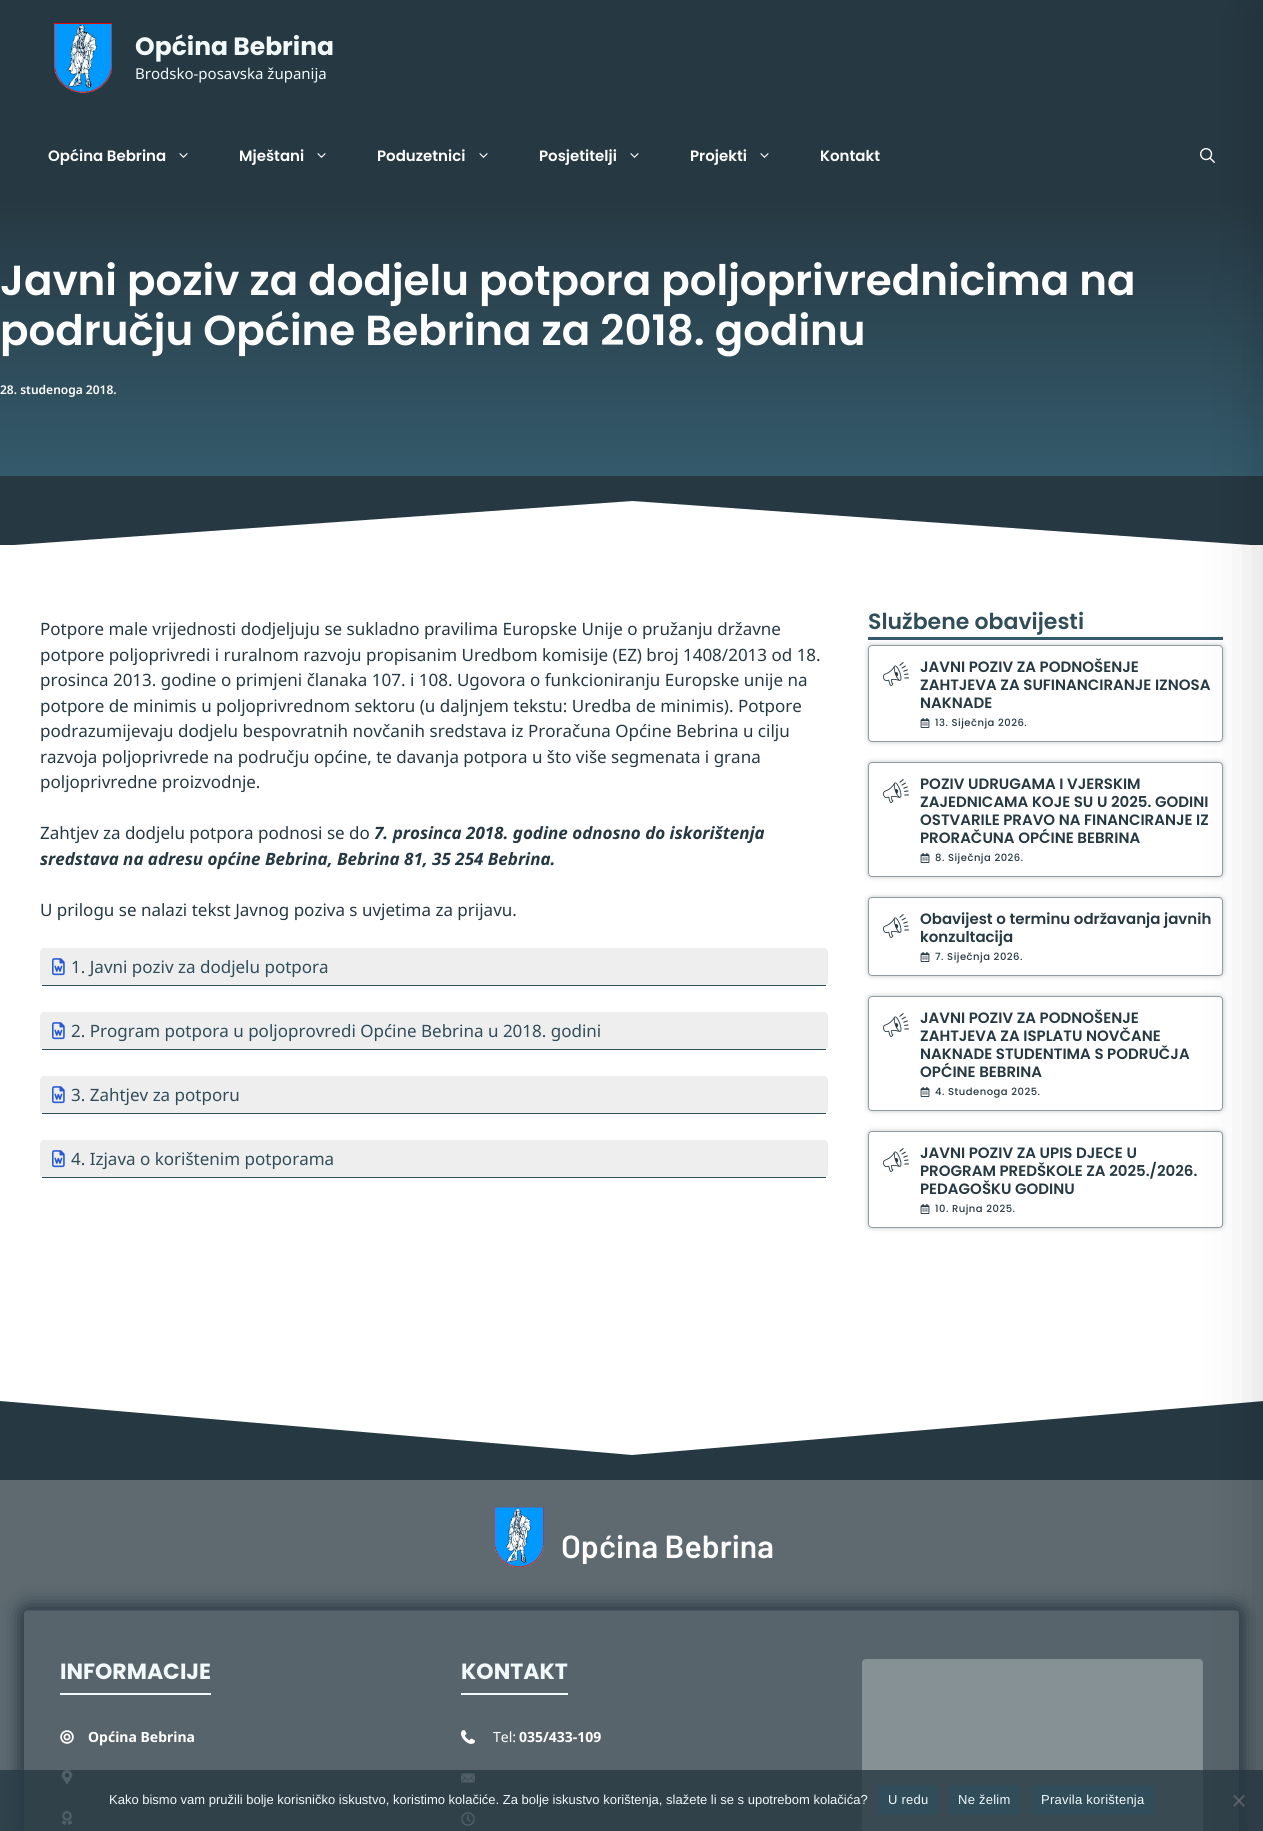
import math
import cairo


def write_spaced(ctx, x, y, s, letter, word):
	ctx.move_to(x, y)
	for ch in s:
		ctx.show_text(ch)
		ctx.rel_move_to(letter + word * (ch == ' '), 0)

def round_path(ctx, x, y, w, h, r):
	ctx.new_sub_path()
	for i, (u, v) in enumerate([(x + w - r, y + h - r), (x + r, y + h - r), (x + r, y + r), (x + w - r, y + r)]):
		ctx.arc(u, v, r, i * math.pi / 2, (i + 1) * math.pi / 2)
	ctx.close_path()

def blur_box(ctx, x, y, w, h, r, blur, alpha):
	ctx.push_group_with_content(cairo.CONTENT_ALPHA)
	ctx.set_operator(cairo.OPERATOR_SOURCE)
	for i in range(15, -16, -2):
		e = blur * i / 6
		if min(w, h) + 2 * e > 0:
			ctx.set_source_rgba(0, 0, 0, alpha * math.erfc((i - 1) / 8.5) / 2)
			round_path(ctx, x - e, y - e, w + 2 * e, h + 2 * e, max(0, min(r + e + blur * .6, min(w, h) / 2 + e)))
			ctx.fill()
	ctx.mask(ctx.pop_group())

def paste(ctx, path, x, y, w, h):
	ctx.save()
	ctx.set_source_surface(cairo.ImageSurface.create_from_png(path), x, y)
	ctx.rectangle(x, y, w, h)
	ctx.fill()
	ctx.restore()

def draw(ctx):
	ctx.set_source_rgb(1, 1, 1)
	ctx.paint()
	ctx.set_source_rgb(0.149, 0.22, 0.259)
	ctx.rectangle(0, 0, 1263, 196)
	ctx.fill()
	paste(ctx, 'media/1.png', 54, 23, 58, 70)
	ctx.select_font_face('Poppins', cairo.FONT_SLANT_NORMAL, cairo.FONT_WEIGHT_BOLD)
	ctx.set_font_size(25)
	ctx.set_source_rgb(0.945, 0.973, 0.98)
	ctx.move_to(135, 55)
	ctx.show_text('Općina Bebrina')
	ctx.select_font_face('Noto Sans')
	ctx.set_font_size(15)
	ctx.move_to(135, 79)
	ctx.show_text('Brodsko-posavska županija')
	paste(ctx, 'media/3.png', 1200, 148, 15, 15)
	ctx.set_source_rgb(0.149, 0.22, 0.259)
	ctx.rectangle(0, 476, 1263, 20)
	ctx.fill()
	gradient = cairo.LinearGradient(632, 196, 632, 476)
	gradient.add_color_stop_rgba(0, 0.149, 0.22, 0.259, 1)
	gradient.add_color_stop_rgba(1, 0.204, 0.353, 0.42, 1)
	ctx.set_source(gradient)
	ctx.rectangle(0, 196, 1263, 280)
	ctx.fill()
	ctx.save()
	ctx.rectangle(0, 496, 1263, 49)
	ctx.clip()
	ctx.set_source_rgb(0.149, 0.22, 0.259)
	ctx.new_path()
	ctx.move_to(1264, 496)
	ctx.line_to(0, 496)
	ctx.line_to(0, 546)
	ctx.line_to(632, 501)
	ctx.line_to(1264, 546)
	ctx.close_path()
	ctx.fill()
	ctx.restore()
	ctx.set_source_rgb(0.204, 0.353, 0.42)
	ctx.rectangle(868, 637, 355, 3)
	ctx.fill()
	ctx.set_source_rgb(0.149, 0.224, 0.259)
	blur_box(ctx, 868, 645, 355, 97, 4, 2.5, 0.3)
	ctx.set_source_rgb(1, 1, 1)
	round_path(ctx, 868, 645, 355, 97, 4)
	ctx.fill()
	round_path(ctx, 868.5, 645.5, 354, 96, 3.5)
	ctx.set_source_rgba(0.149, 0.224, 0.259, 0.5)
	ctx.set_line_width(1)
	ctx.stroke()
	ctx.set_source_rgb(0.149, 0.224, 0.259)
	blur_box(ctx, 868, 762, 355, 115, 4, 2.5, 0.3)
	ctx.set_source_rgb(1, 1, 1)
	round_path(ctx, 868, 762, 355, 115, 4)
	ctx.fill()
	round_path(ctx, 868.5, 762.5, 354, 114, 3.5)
	ctx.set_source_rgba(0.149, 0.224, 0.259, 0.5)
	ctx.stroke()
	ctx.set_source_rgb(0.149, 0.224, 0.259)
	blur_box(ctx, 868, 897, 355, 79, 4, 2.5, 0.3)
	ctx.set_source_rgb(1, 1, 1)
	round_path(ctx, 868, 897, 355, 79, 4)
	ctx.fill()
	round_path(ctx, 868.5, 897.5, 354, 78, 3.5)
	ctx.set_source_rgba(0.149, 0.224, 0.259, 0.5)
	ctx.stroke()
	ctx.set_source_rgb(0.149, 0.224, 0.259)
	blur_box(ctx, 868, 996, 355, 115, 4, 2.5, 0.3)
	ctx.set_source_rgb(1, 1, 1)
	round_path(ctx, 868, 996, 355, 115, 4)
	ctx.fill()
	round_path(ctx, 868.5, 996.5, 354, 114, 3.5)
	ctx.set_source_rgba(0.149, 0.224, 0.259, 0.5)
	ctx.stroke()
	ctx.set_source_rgb(0.149, 0.224, 0.259)
	blur_box(ctx, 868, 1131, 355, 97, 4, 2.5, 0.3)
	ctx.set_source_rgb(1, 1, 1)
	round_path(ctx, 868, 1131, 355, 97, 4)
	ctx.fill()
	round_path(ctx, 868.5, 1131.5, 354, 96, 3.5)
	ctx.set_source_rgba(0.149, 0.224, 0.259, 0.5)
	ctx.stroke()
	ctx.save()
	ctx.rectangle(0, 1401, 1263, 59)
	ctx.clip()
	ctx.set_source_rgb(0.149, 0.22, 0.259)
	ctx.new_path()
	ctx.move_to(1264, 1461)
	ctx.line_to(0, 1461)
	ctx.line_to(0, 1401)
	ctx.line_to(632, 1455)
	ctx.line_to(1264, 1401)
	ctx.close_path()
	ctx.fill()
	ctx.restore()
	ctx.set_source_rgb(0.369, 0.412, 0.439)
	ctx.rectangle(0, 1480, 1263, 351)
	ctx.fill()
	ctx.set_source_rgb(0.149, 0.22, 0.259)
	ctx.rectangle(0, 1460, 1263, 20)
	ctx.fill()
	ctx.save()
	ctx.set_fill_rule(cairo.FILL_RULE_EVEN_ODD)
	ctx.new_path()
	ctx.move_to(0, 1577)
	ctx.line_to(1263, 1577)
	ctx.line_to(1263, 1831)
	ctx.line_to(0, 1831)
	ctx.close_path()
	ctx.move_to(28, 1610)
	ctx.line_to(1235, 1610)
	ctx.curve_to(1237, 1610, 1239, 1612, 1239, 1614)
	ctx.line_to(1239, 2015)
	ctx.curve_to(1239, 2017, 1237, 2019, 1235, 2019)
	ctx.line_to(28, 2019)
	ctx.curve_to(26, 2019, 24, 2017, 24, 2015)
	ctx.line_to(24, 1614)
	ctx.curve_to(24, 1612, 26, 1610, 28, 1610)
	ctx.close_path()
	ctx.clip()
	ctx.set_source_rgb(0.098, 0.161, 0.2)
	blur_box(ctx, 22, 1608, 1219, 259, 6, 10, 1)
	ctx.restore()
	ctx.set_source_rgba(0.149, 0.224, 0.259, 0.1)
	round_path(ctx, 24, 1610, 1215, 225, 4)
	ctx.fill()
	ctx.set_source_rgba(0.078, 0.169, 0.341, 0.2)
	ctx.rectangle(26, 1610, 1211, 1)
	ctx.fill()
	ctx.set_source_rgb(0.525, 0.569, 0.588)
	round_path(ctx, 862, 1659, 341, 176, 4)
	ctx.fill()
	paste(ctx, 'media/9.png', 61, 1770, 12, 14)
	paste(ctx, 'media/10.png', 61, 1811, 12, 14)
	paste(ctx, 'media/12.png', 461, 1773, 14, 10)
	paste(ctx, 'media/13.png', 461, 1812, 14, 14)
	ctx.set_source_rgba(0.149, 0.224, 0.259, 0.8)
	ctx.rectangle(0, 1770, 1263, 61)
	ctx.fill()
	ctx.set_source_rgba(0.502, 0.502, 0.502, 0.5)
	ctx.new_path()
	ctx.move_to(1243.5, 1794.5)
	ctx.line_to(1245, 1796)
	ctx.line_to(1234.5, 1807)
	ctx.line_to(1233, 1805.5)
	ctx.close_path()
	ctx.fill()
	ctx.new_path()
	ctx.move_to(1233, 1796)
	ctx.line_to(1234.5, 1794.5)
	ctx.line_to(1245, 1805.5)
	ctx.line_to(1243.5, 1807)
	ctx.close_path()
	ctx.fill()
	ctx.set_source_rgb(0, 0, 0)
	blur_box(ctx, 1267, 10, 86, 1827, 0, 30, 0.2)
	ctx.select_font_face('Poppins SemiBold')
	ctx.set_source_rgb(1, 1, 1)
	ctx.move_to(48, 161)
	ctx.show_text('Općina Bebrina')
	paste(ctx, 'media/2.png', 179, 153, 9, 5)
	ctx.move_to(239, 161)
	ctx.show_text('Mještani')
	paste(ctx, 'media/2.png', 317, 153, 9, 5)
	ctx.move_to(377, 161)
	ctx.show_text('Poduzetnici')
	paste(ctx, 'media/2.png', 479, 153, 9, 5)
	ctx.move_to(539, 161)
	ctx.show_text('Posjetitelji')
	paste(ctx, 'media/2.png', 630, 153, 9, 5)
	ctx.move_to(690, 161)
	ctx.show_text('Projekti')
	paste(ctx, 'media/2.png', 760, 153, 9, 5)
	ctx.move_to(820, 161)
	ctx.show_text('Kontakt')
	ctx.set_font_size(42)
	ctx.move_to(0, 295)
	ctx.show_text('Javni poziv za dodjelu potpora poljoprivrednicima na')
	ctx.move_to(0, 345)
	ctx.show_text('području Općine Bebrina za 2018. godinu')
	ctx.select_font_face('Noto Sans SemiBold')
	ctx.set_font_size(12)
	ctx.move_to(0, 394)
	ctx.show_text('28. studenoga 2018.')
	ctx.select_font_face('Noto Sans')
	ctx.set_font_size(17)
	ctx.set_source_rgb(0.149, 0.22, 0.259)
	for x, y, s in [
		(40, 635, 'Potpore male vrijednosti dodjeljuju se sukladno pravilima Europske Unije o pružanju državne'),
		(40, 661, 'potpore poljoprivredi i ruralnom razvoju propisanim Uredbom komisije (EZ) broj 1408/2013 od 18.'),
		(40, 686, 'prosinca 2013. godine o primjeni članaka 107. i 108. Ugovora o funkcioniranju Europske unije na'),
		(40, 712, 'potpore de minimis u poljoprivrednom sektoru (u daljnjem tekstu: Uredba de minimis). Potpore'),
		(40, 737, 'podrazumijevaju dodjelu bespovratnih novčanih sredstava iz Proračuna Općine Bebrina u cilju'),
		(40, 763, 'razvoja poljoprivrede na području općine, te davanja potpora u što više segmenata i grana'),
		(40, 788, 'poljoprivredne proizvodnje.'),
		(40, 839, 'Zahtjev za dodjelu potpora podnosi se do'),
	]:
		ctx.move_to(x, y)
		ctx.show_text(s)
	ctx.select_font_face('Noto Sans', cairo.FONT_SLANT_ITALIC, cairo.FONT_WEIGHT_BOLD)
	ctx.move_to(374, 839)
	ctx.show_text('7. prosinca 2018. godine odnosno do iskorištenja')
	ctx.move_to(40, 865)
	ctx.show_text('sredstava na adresu općine Bebrina, Bebrina 81, 35 254 Bebrina.')
	ctx.select_font_face('Noto Sans')
	ctx.move_to(40, 916)
	ctx.show_text('U prilogu se nalazi tekst Javnog poziva s uvjetima za prijavu.')
	ctx.set_source_rgb(0.933, 0.933, 0.933)
	round_path(ctx, 40, 948, 788, 38, 4)
	ctx.fill()
	ctx.set_source_rgb(0.192, 0.302, 0.349)
	ctx.rectangle(42, 985, 784, 1)
	ctx.fill()
	paste(ctx, 'media/4.png', 52, 958, 13, 18)
	ctx.move_to(71, 973)
	ctx.show_text('1. Javni poziv za dodjelu potpora')
	ctx.set_source_rgb(0.933, 0.933, 0.933)
	round_path(ctx, 40, 1012, 788, 38, 4)
	ctx.fill()
	ctx.set_source_rgb(0.192, 0.302, 0.349)
	ctx.rectangle(42, 1049, 784, 1)
	ctx.fill()
	paste(ctx, 'media/4.png', 52, 1022, 13, 18)
	ctx.move_to(71, 1037)
	ctx.show_text('2. Program potpora u poljoprovredi Općine Bebrina u 2018. godini')
	ctx.set_source_rgb(0.933, 0.933, 0.933)
	round_path(ctx, 40, 1076, 788, 38, 4)
	ctx.fill()
	ctx.set_source_rgb(0.192, 0.302, 0.349)
	ctx.rectangle(42, 1113, 784, 1)
	ctx.fill()
	paste(ctx, 'media/4.png', 52, 1086, 13, 18)
	ctx.move_to(71, 1101)
	ctx.show_text('3. Zahtjev za potporu')
	ctx.set_source_rgb(0.933, 0.933, 0.933)
	round_path(ctx, 40, 1140, 788, 38, 4)
	ctx.fill()
	ctx.set_source_rgb(0.192, 0.302, 0.349)
	ctx.rectangle(42, 1177, 784, 1)
	ctx.fill()
	paste(ctx, 'media/4.png', 52, 1150, 13, 18)
	ctx.move_to(71, 1165)
	ctx.show_text('4. Izjava o korištenim potporama')
	ctx.select_font_face('Poppins SemiBold')
	ctx.set_font_size(22)
	ctx.move_to(868, 629)
	ctx.show_text('Službene obavijesti')
	paste(ctx, 'media/5.png', 883, 662, 26, 24)
	ctx.set_font_size(15)
	ctx.set_source_rgb(0.149, 0.22, 0.259)
	for x, y, s in [
		(920, 672, 'JAVNI POZIV ZA PODNOŠENJE'),
		(920, 690, 'ZAHTJEVA ZA SUFINANCIRANJE IZNOSA'),
		(920, 708, 'NAKNADE'),
	]:
		ctx.move_to(x, y)
		ctx.show_text(s)
	paste(ctx, 'media/6.png', 920, 718, 10, 10)
	ctx.select_font_face('Poppins Medium')
	ctx.set_font_size(10)
	write_spaced(ctx, 935, 726, '13. Siječnja 2026.', 0.5, 0)
	paste(ctx, 'media/5.png', 883, 779, 26, 24)
	ctx.select_font_face('Poppins SemiBold')
	ctx.set_font_size(15)
	for x, y, s in [
		(920, 789, 'POZIV UDRUGAMA I VJERSKIM'),
		(920, 807, 'ZAJEDNICAMA KOJE SU U 2025. GODINI'),
		(920, 825, 'OSTVARILE PRAVO NA FINANCIRANJE IZ'),
		(920, 843, 'PRORAČUNA OPĆINE BEBRINA'),
	]:
		ctx.move_to(x, y)
		ctx.show_text(s)
	paste(ctx, 'media/6.png', 920, 853, 10, 10)
	ctx.select_font_face('Poppins Medium')
	ctx.set_font_size(10)
	write_spaced(ctx, 935, 861, '8. Siječnja 2026.', 0.5, 0)
	paste(ctx, 'media/5.png', 883, 914, 26, 24)
	ctx.select_font_face('Poppins SemiBold')
	ctx.set_font_size(15)
	ctx.move_to(920, 924)
	ctx.show_text('Obavijest o terminu održavanja javnih')
	ctx.move_to(920, 942)
	ctx.show_text('konzultacija')
	paste(ctx, 'media/6.png', 920, 952, 10, 10)
	ctx.select_font_face('Poppins Medium')
	ctx.set_font_size(10)
	write_spaced(ctx, 935, 960, '7. Siječnja 2026.', 0.5, 0)
	paste(ctx, 'media/5.png', 883, 1013, 26, 24)
	ctx.select_font_face('Poppins SemiBold')
	ctx.set_font_size(15)
	for x, y, s in [
		(920, 1023, 'JAVNI POZIV ZA PODNOŠENJE'),
		(920, 1041, 'ZAHTJEVA ZA ISPLATU NOVČANE'),
		(920, 1059, 'NAKNADE STUDENTIMA S PODRUČJA'),
		(920, 1077, 'OPĆINE BEBRINA'),
	]:
		ctx.move_to(x, y)
		ctx.show_text(s)
	paste(ctx, 'media/6.png', 920, 1087, 10, 10)
	ctx.select_font_face('Poppins Medium')
	ctx.set_font_size(10)
	write_spaced(ctx, 935, 1095, '4. Studenoga 2025.', 0.5, 0)
	paste(ctx, 'media/5.png', 883, 1148, 26, 24)
	ctx.select_font_face('Poppins SemiBold')
	ctx.set_font_size(15)
	for x, y, s in [
		(920, 1158, 'JAVNI POZIV ZA UPIS DJECE U'),
		(920, 1176, 'PROGRAM PREDŠKOLE ZA 2025./2026.'),
		(920, 1194, 'PEDAGOŠKU GODINU'),
	]:
		ctx.move_to(x, y)
		ctx.show_text(s)
	paste(ctx, 'media/6.png', 920, 1204, 10, 10)
	ctx.select_font_face('Poppins Medium')
	ctx.set_font_size(10)
	write_spaced(ctx, 935, 1212, '10. Rujna 2025.', 0.5, 0)
	paste(ctx, 'media/7.png', 494, 1507, 50, 60)
	ctx.select_font_face('Barlow SemiBold')
	ctx.set_font_size(32)
	ctx.set_source_rgb(1, 1, 1)
	ctx.move_to(561, 1558)
	ctx.show_text('Općina Bebrina')
	ctx.set_source_rgb(0.945, 0.973, 0.98)
	ctx.rectangle(60, 1693, 151, 2)
	ctx.fill()
	ctx.select_font_face('Poppins', cairo.FONT_SLANT_NORMAL, cairo.FONT_WEIGHT_BOLD)
	ctx.set_font_size(22)
	ctx.move_to(60, 1679)
	ctx.show_text('INFORMACIJE')
	paste(ctx, 'media/8.png', 60, 1730, 14, 14)
	ctx.select_font_face('Noto Sans', cairo.FONT_SLANT_NORMAL, cairo.FONT_WEIGHT_BOLD)
	ctx.set_font_size(14)
	ctx.set_source_rgb(1, 1, 1)
	ctx.move_to(88, 1742)
	ctx.show_text('Općina Bebrina')
	ctx.set_source_rgb(0.945, 0.973, 0.98)
	ctx.rectangle(461, 1693, 107, 2)
	ctx.fill()
	ctx.select_font_face('Poppins', cairo.FONT_SLANT_NORMAL, cairo.FONT_WEIGHT_BOLD)
	ctx.set_font_size(22)
	ctx.move_to(461, 1679)
	ctx.show_text('KONTAKT')
	paste(ctx, 'media/11.png', 461, 1730, 14, 14)
	ctx.select_font_face('Noto Sans')
	ctx.set_font_size(14)
	ctx.set_source_rgb(1, 1, 1)
	ctx.move_to(493, 1742)
	ctx.show_text('Tel:')
	ctx.select_font_face('Noto Sans', cairo.FONT_SLANT_NORMAL, cairo.FONT_WEIGHT_BOLD)
	ctx.move_to(519, 1742)
	ctx.show_text('035/433-109')
	ctx.select_font_face('Liberation Sans')
	ctx.set_font_size(13)
	ctx.set_source_rgb(0.945, 0.973, 0.98)
	ctx.move_to(109, 1804)
	ctx.show_text('Kako bismo vam pružili bolje korisničko iskustvo, koristimo kolačiće. Za bolje iskustvo korištenja, slažete li se s upotrebom kolačića?')
	ctx.set_source_rgb(0.192, 0.302, 0.349)
	round_path(ctx, 878, 1785, 60, 30, 3)
	ctx.fill()
	ctx.set_source_rgb(0.945, 0.973, 0.98)
	write_spaced(ctx, 888, 1804, 'U redu', 0.25, 0)
	ctx.set_source_rgb(0.192, 0.302, 0.349)
	round_path(ctx, 948, 1785, 73, 30, 3)
	ctx.fill()
	ctx.set_source_rgb(0.945, 0.973, 0.98)
	write_spaced(ctx, 958, 1804, 'Ne želim', 0.25, 0)
	ctx.set_source_rgb(0.192, 0.302, 0.349)
	round_path(ctx, 1031, 1785, 123, 30, 3)
	ctx.fill()
	ctx.set_source_rgb(0.945, 0.973, 0.98)
	write_spaced(ctx, 1041, 1804, 'Pravila korištenja', 0.25, 0)


surface = cairo.ImageSurface(cairo.FORMAT_RGB24, 1263, 1831)
ctx = cairo.Context(surface)
options = cairo.FontOptions()
options.set_hint_metrics(cairo.HINT_METRICS_OFF)
options.set_hint_style(cairo.HINT_STYLE_NONE)
ctx.set_font_options(options)
ctx.set_miter_limit(4)
draw(ctx)
surface.write_to_png('image.png')
